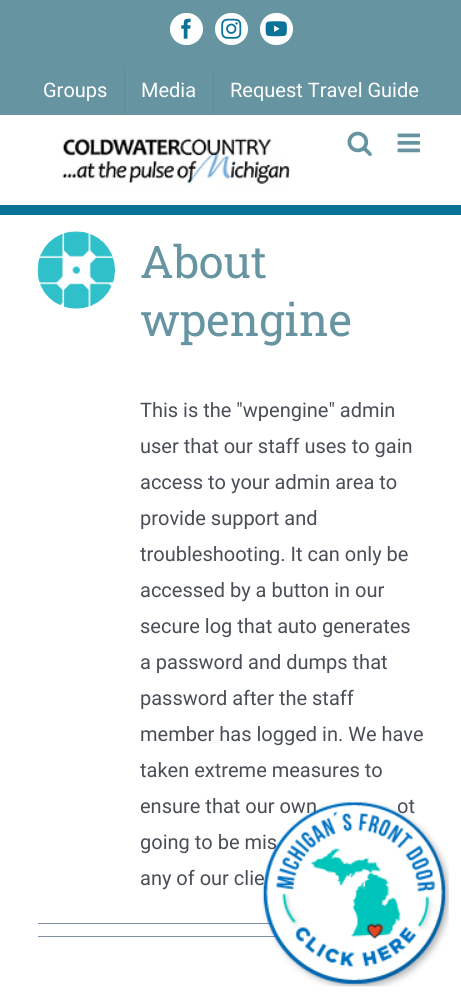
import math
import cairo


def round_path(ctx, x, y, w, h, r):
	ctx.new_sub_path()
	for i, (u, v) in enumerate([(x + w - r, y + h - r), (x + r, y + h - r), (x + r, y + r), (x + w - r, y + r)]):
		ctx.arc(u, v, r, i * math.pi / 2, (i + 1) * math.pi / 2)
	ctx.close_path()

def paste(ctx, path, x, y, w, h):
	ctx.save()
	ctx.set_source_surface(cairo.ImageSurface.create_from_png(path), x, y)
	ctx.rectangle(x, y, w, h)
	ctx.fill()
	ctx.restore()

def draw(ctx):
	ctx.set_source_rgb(1, 1, 1)
	ctx.paint()
	ctx.set_source_rgb(0.4, 0.58, 0.631)
	ctx.rectangle(0, 0, 461, 115)
	ctx.fill()
	ctx.set_source_rgb(1, 1, 1)
	round_path(ctx, 170.5, 13.5, 32, 31, 15.5)
	ctx.fill_preserve()
	ctx.set_line_width(1)
	ctx.stroke()
	paste(ctx, 'media/1.png', 181, 18, 10, 21)
	round_path(ctx, 215.5, 13.5, 32, 31, 15.5)
	ctx.fill_preserve()
	ctx.stroke()
	paste(ctx, 'media/2.png', 221, 18, 21, 21)
	round_path(ctx, 260.5, 13.5, 32, 31, 15.5)
	ctx.fill_preserve()
	ctx.stroke()
	paste(ctx, 'media/3.png', 265, 21, 22, 16)
	ctx.select_font_face('Roboto')
	ctx.set_font_size(20)
	ctx.move_to(43, 97)
	ctx.show_text('Groups')
	ctx.set_source_rgb(0.376, 0.545, 0.592)
	ctx.rectangle(124, 69, 1, 45)
	ctx.fill()
	ctx.set_source_rgb(1, 1, 1)
	ctx.move_to(141, 97)
	ctx.show_text('Media')
	ctx.set_source_rgb(0.376, 0.545, 0.592)
	ctx.rectangle(213, 69, 1, 45)
	ctx.fill()
	ctx.set_source_rgb(1, 1, 1)
	ctx.move_to(230, 97)
	ctx.show_text('Request Travel Guide')
	ctx.set_source_rgb(0.039, 0.451, 0.592)
	ctx.rectangle(0, 205, 461, 10)
	ctx.fill()
	paste(ctx, 'media/4.png', 62, 138, 229, 49)
	paste(ctx, 'media/5.png', 347, 131, 25, 25)
	paste(ctx, 'media/6.png', 397, 133, 23, 20)
	paste(ctx, 'media/7.png', 37, 231, 78, 78)
	ctx.select_font_face('Roboto Slab')
	ctx.set_font_size(45)
	ctx.set_source_rgb(0.4, 0.58, 0.631)
	ctx.move_to(140, 278)
	ctx.show_text('About')
	ctx.move_to(140, 336)
	ctx.show_text('wpengine')
	ctx.select_font_face('Roboto')
	ctx.set_font_size(20)
	ctx.set_source_rgb(0.29, 0.306, 0.341)
	for x, y, s in [
		(140, 417, 'This is the "wpengine" admin'),
		(140, 453, 'user that our staff uses to gain'),
		(140, 489, 'access to your admin area to'),
		(140, 525, 'provide support and'),
		(140, 561, 'troubleshooting. It can only be'),
		(140, 597, 'accessed by a button in our'),
		(140, 633, 'secure log that auto generates'),
		(140, 669, 'a password and dumps that'),
		(140, 705, 'password after the staff'),
		(140, 741, 'member has logged in. We have'),
		(140, 777, 'taken extreme measures to'),
		(140, 813, 'ensure that our own'),
		(397, 813, 'ot'),
		(140, 849, 'going to be mis'),
		(140, 885, 'any of our clie'),
	]:
		ctx.move_to(x, y)
		ctx.show_text(s)
	ctx.set_source_rgb(0.51, 0.565, 0.651)
	ctx.rectangle(38, 923, 233, 1)
	ctx.fill()
	ctx.rectangle(38, 936, 238, 1)
	ctx.fill()
	paste(ctx, 'media/8.png', 262, 801, 187, 186)


surface = cairo.ImageSurface(cairo.FORMAT_RGB24, 461, 998)
ctx = cairo.Context(surface)
options = cairo.FontOptions()
options.set_hint_metrics(cairo.HINT_METRICS_OFF)
options.set_hint_style(cairo.HINT_STYLE_NONE)
ctx.set_font_options(options)
ctx.set_miter_limit(4)
draw(ctx)
surface.write_to_png('image.png')
